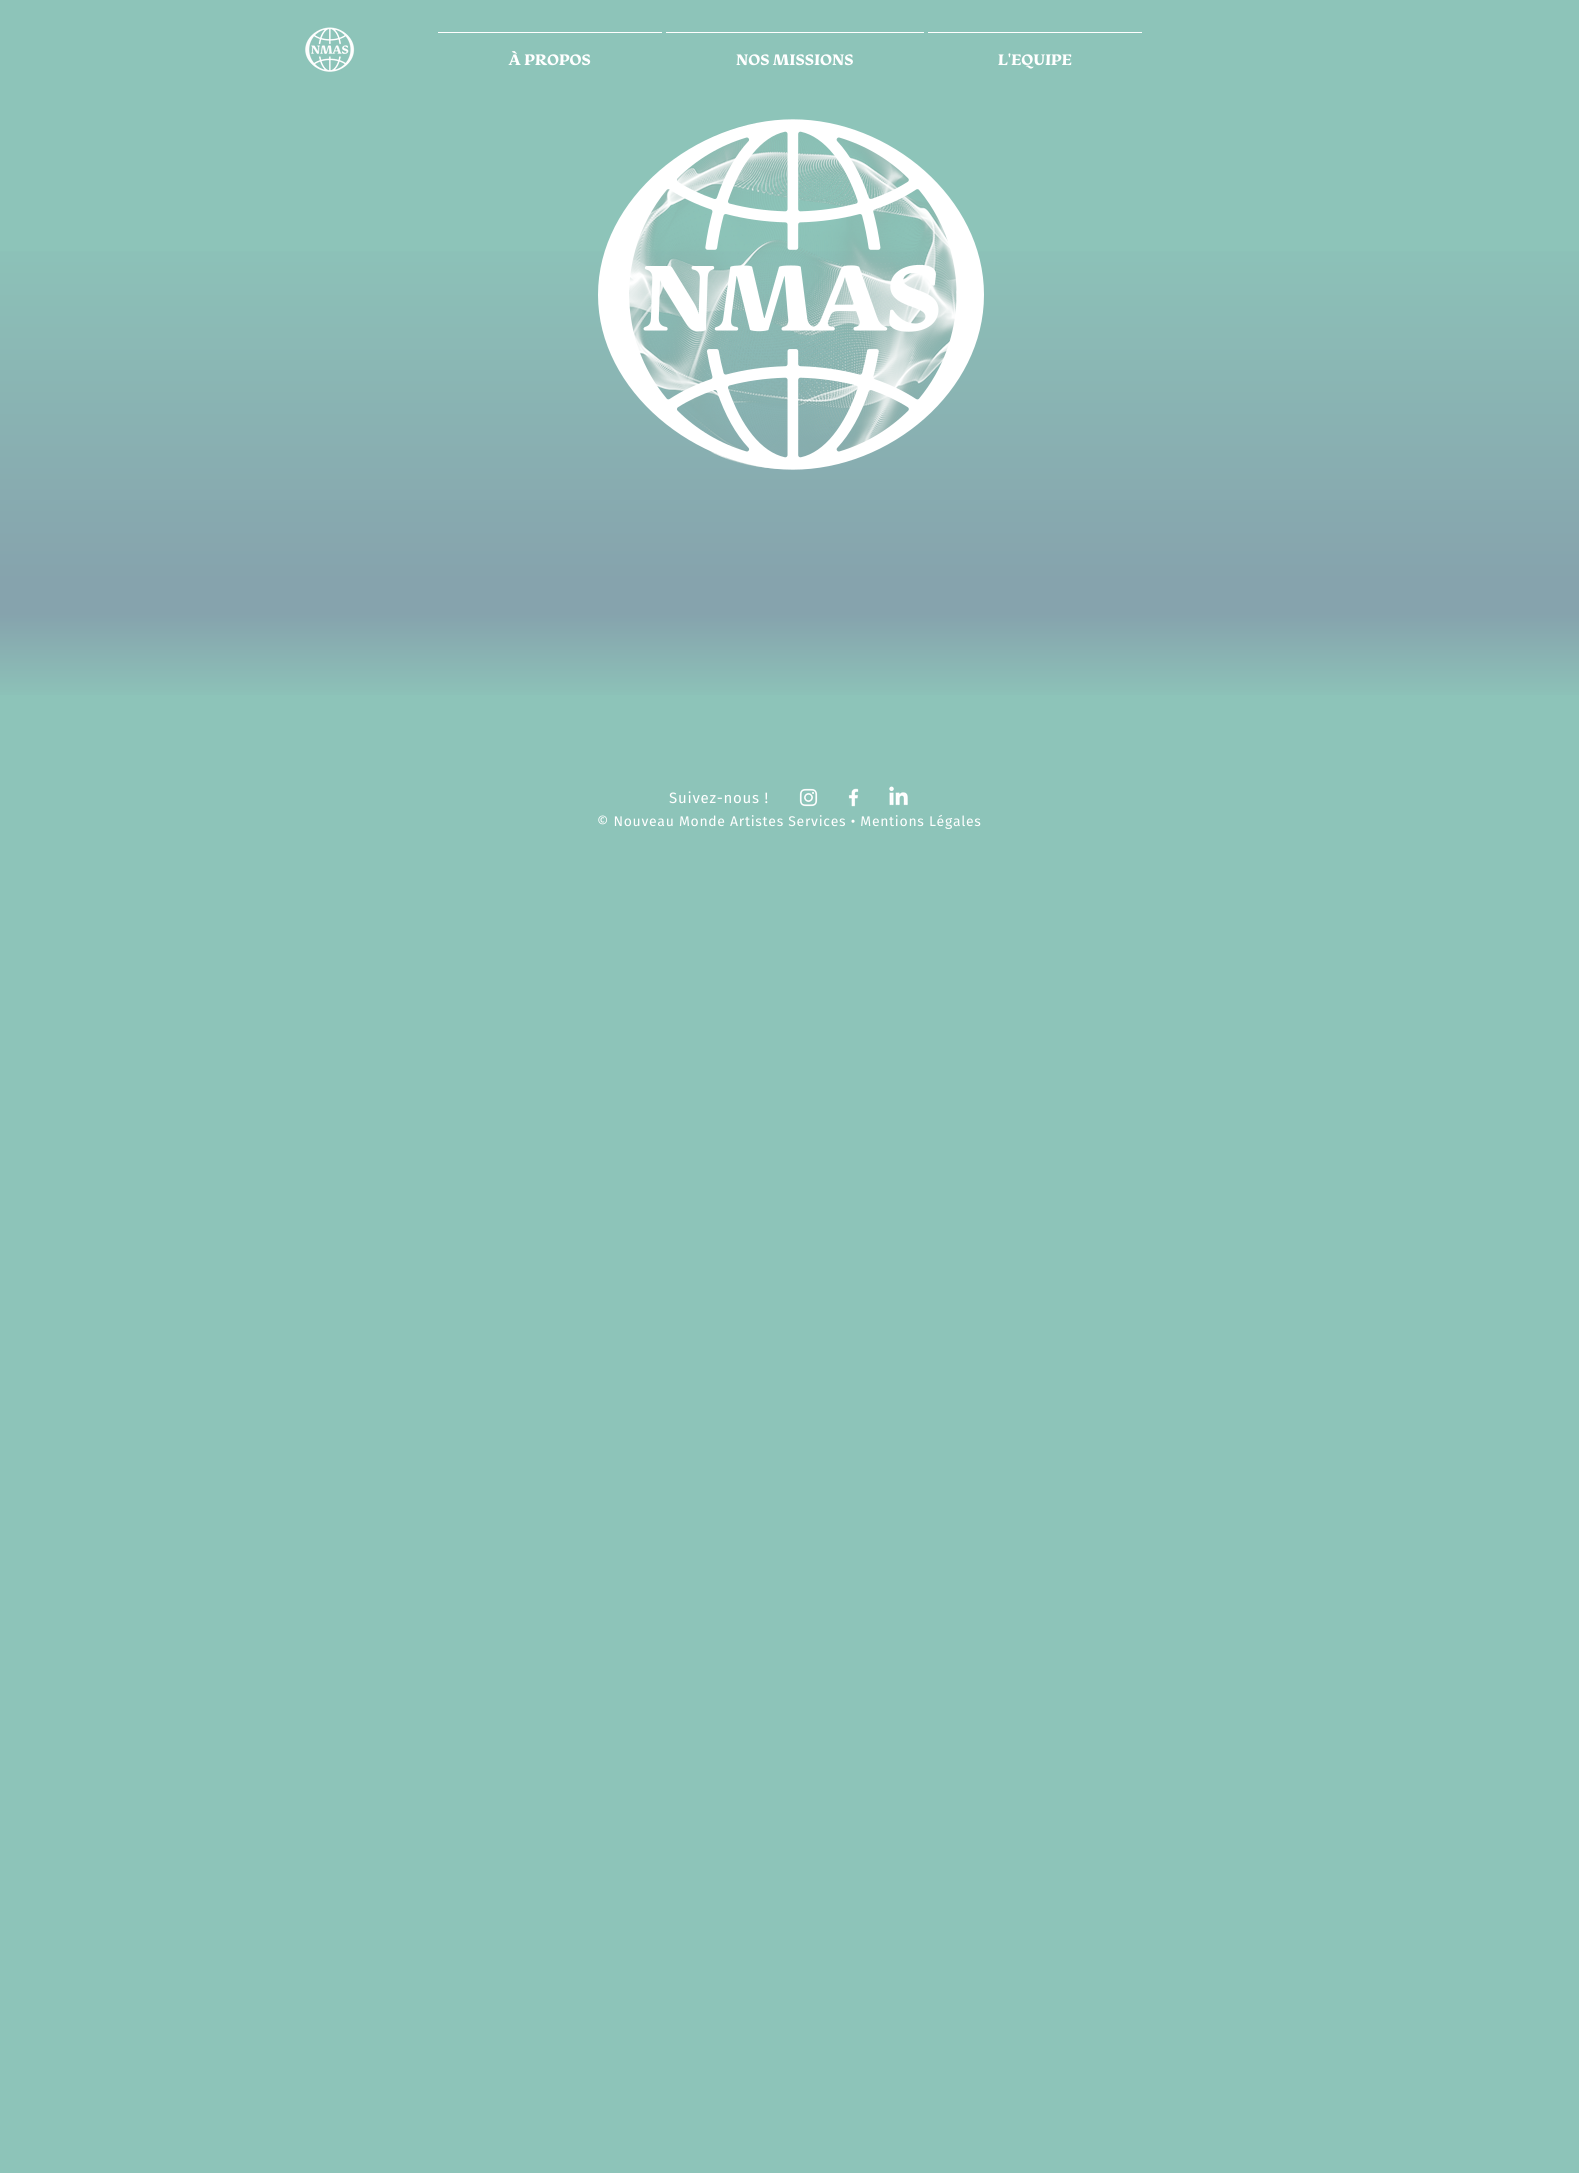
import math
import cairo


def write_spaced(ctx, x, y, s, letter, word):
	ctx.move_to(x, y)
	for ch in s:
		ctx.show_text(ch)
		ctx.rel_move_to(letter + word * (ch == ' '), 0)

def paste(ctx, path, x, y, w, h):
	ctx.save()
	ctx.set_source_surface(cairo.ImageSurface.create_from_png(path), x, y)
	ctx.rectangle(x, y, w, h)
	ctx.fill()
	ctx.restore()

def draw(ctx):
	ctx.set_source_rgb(0.553, 0.769, 0.725)
	ctx.paint()
	paste(ctx, 'media/1.png', 305, 27, 50, 45)
	ctx.set_source_rgb(1, 1, 1)
	ctx.rectangle(438, 32, 224, 1)
	ctx.fill()
	ctx.select_font_face('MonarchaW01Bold', cairo.FONT_SLANT_NORMAL, cairo.FONT_WEIGHT_BOLD)
	ctx.set_font_size(16)
	ctx.move_to(509, 65)
	ctx.show_text('À PROPOS')
	ctx.rectangle(666, 32, 258, 1)
	ctx.fill()
	ctx.move_to(736, 65)
	ctx.show_text('NOS MISSIONS')
	ctx.rectangle(928, 32, 214, 1)
	ctx.fill()
	ctx.move_to(998, 65)
	ctx.show_text('L\'EQUIPE')
	gradient = cairo.LinearGradient(790, 79, 790, 614)
	gradient.add_color_stop_rgba(0.27, 0.553, 0.769, 0.725, 1)
	gradient.add_color_stop_rgba(0.94, 0.525, 0.639, 0.678, 1)
	ctx.set_source(gradient)
	ctx.rectangle(0, 251, 1579, 363)
	ctx.fill()
	paste(ctx, 'media/3.png', 629, 120, 328, 349)
	paste(ctx, 'media/2.png', 598, 119, 386, 351)
	gradient = cairo.LinearGradient(790, 614, 790, 702)
	gradient.add_color_stop_rgba(0, 0.525, 0.639, 0.678, 1)
	gradient.add_color_stop_rgba(1, 0.553, 0.769, 0.725, 1)
	ctx.set_source(gradient)
	ctx.rectangle(0, 614, 1579, 81)
	ctx.fill()
	ctx.select_font_face('Fira Sans')
	ctx.set_font_size(15)
	ctx.set_source_rgb(1, 1, 1)
	write_spaced(ctx, 669, 803, 'Suivez-nous !', 0.75, 0)
	paste(ctx, 'media/4.png', 799, 788, 19, 19)
	paste(ctx, 'media/5.png', 848, 788, 11, 19)
	paste(ctx, 'media/6.png', 889, 786, 19, 20)
	ctx.set_font_size(14)
	write_spaced(ctx, 597, 826, '© Nouveau Monde Artistes Services • Mentions Légales', 0.7, 0)


surface = cairo.ImageSurface(cairo.FORMAT_RGB24, 1579, 2173)
ctx = cairo.Context(surface)
options = cairo.FontOptions()
options.set_hint_metrics(cairo.HINT_METRICS_OFF)
options.set_hint_style(cairo.HINT_STYLE_NONE)
ctx.set_font_options(options)
ctx.set_miter_limit(4)
draw(ctx)
surface.write_to_png('image.png')
